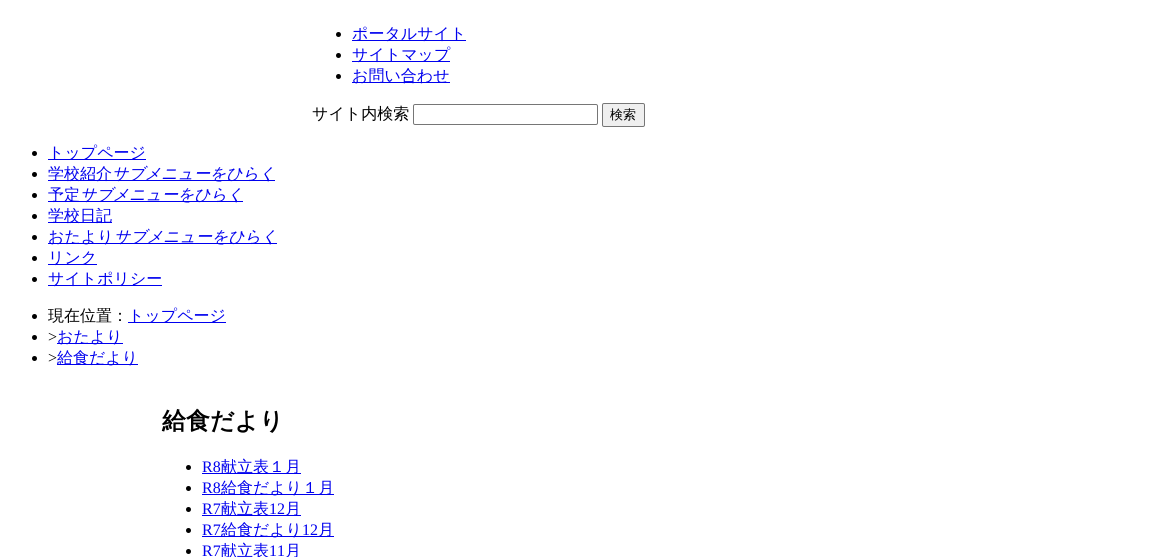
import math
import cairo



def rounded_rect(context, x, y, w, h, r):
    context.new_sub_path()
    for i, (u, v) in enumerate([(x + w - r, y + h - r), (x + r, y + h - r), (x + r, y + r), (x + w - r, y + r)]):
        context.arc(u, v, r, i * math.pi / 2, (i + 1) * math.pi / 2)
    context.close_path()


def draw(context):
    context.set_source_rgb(1, 1, 1)
    context.paint()
    context.set_source_rgb(0, 0, 0)
    context.arc(338.5, 34.5, 2.5, 0, 2 * math.pi)
    context.fill()
    context.set_source_rgb(0, 0, 238 / 255)
    context.rectangle(352, 40, 114, 1)
    context.fill()
    context.set_source_rgb(0, 0, 0)
    context.arc(338.5, 55.5, 2.5, 0, 2 * math.pi)
    context.fill()
    context.set_source_rgb(0, 0, 238 / 255)
    context.rectangle(352, 61, 98, 1)
    context.fill()
    context.set_source_rgb(0, 0, 0)
    context.arc(338.5, 76.5, 2.5, 0, 2 * math.pi)
    context.fill()
    context.set_source_rgb(0, 0, 238 / 255)
    context.rectangle(352, 82, 98, 1)
    context.fill()
    rounded_rect(context, 413.5, 104.5, 184, 20, 1.5)
    context.set_source_rgb(118 / 255, 118 / 255, 118 / 255)
    context.set_line_width(1)
    context.stroke()
    context.set_source_rgb(239 / 255, 239 / 255, 239 / 255)
    rounded_rect(context, 602.5, 103.5, 42, 23, 1.5)
    context.fill_preserve()
    context.set_source_rgb(118 / 255, 118 / 255, 118 / 255)
    context.stroke()
    context.set_source_rgb(0, 0, 0)
    context.arc(34.5, 153.5, 2.5, 0, 2 * math.pi)
    context.fill()
    context.set_source_rgb(0, 0, 238 / 255)
    context.rectangle(48, 159, 98, 1)
    context.fill()
    context.set_source_rgb(0, 0, 0)
    context.arc(34.5, 174.5, 2.5, 0, 2 * math.pi)
    context.fill()
    context.set_source_rgb(0, 0, 238 / 255)
    context.rectangle(48, 180, 227, 1)
    context.fill()
    context.set_source_rgb(0, 0, 0)
    context.arc(34.5, 195.5, 2.5, 0, 2 * math.pi)
    context.fill()
    context.set_source_rgb(0, 0, 238 / 255)
    context.rectangle(48, 201, 195, 1)
    context.fill()
    context.set_source_rgb(0, 0, 0)
    context.arc(34.5, 216.5, 2.5, 0, 2 * math.pi)
    context.fill()
    context.set_source_rgb(0, 0, 238 / 255)
    context.rectangle(48, 222, 64, 1)
    context.fill()
    context.set_source_rgb(0, 0, 0)
    context.arc(34.5, 237.5, 2.5, 0, 2 * math.pi)
    context.fill()
    context.set_source_rgb(0, 0, 238 / 255)
    context.rectangle(48, 243, 229, 1)
    context.fill()
    context.set_source_rgb(0, 0, 0)
    context.arc(34.5, 258.5, 2.5, 0, 2 * math.pi)
    context.fill()
    context.set_source_rgb(0, 0, 238 / 255)
    context.rectangle(48, 264, 49, 1)
    context.fill()
    context.set_source_rgb(0, 0, 0)
    context.arc(34.5, 279.5, 2.5, 0, 2 * math.pi)
    context.fill()
    context.set_source_rgb(0, 0, 238 / 255)
    context.rectangle(48, 285, 114, 1)
    context.fill()
    context.set_source_rgb(0, 0, 0)
    context.arc(34.5, 316.5, 2.5, 0, 2 * math.pi)
    context.fill()
    context.set_source_rgb(0, 0, 238 / 255)
    context.rectangle(128, 322, 98, 1)
    context.fill()
    context.set_source_rgb(0, 0, 0)
    context.arc(34.5, 337.5, 2.5, 0, 2 * math.pi)
    context.fill()
    context.set_source_rgb(0, 0, 238 / 255)
    context.rectangle(57, 343, 66, 1)
    context.fill()
    context.set_source_rgb(0, 0, 0)
    context.arc(34.5, 358.5, 2.5, 0, 2 * math.pi)
    context.fill()
    context.set_source_rgb(0, 0, 238 / 255)
    context.rectangle(57, 364, 81, 1)
    context.fill()
    context.set_source_rgb(0, 0, 0)
    context.arc(188.5, 467.5, 2.5, 0, 2 * math.pi)
    context.fill()
    context.set_source_rgb(0, 0, 238 / 255)
    context.rectangle(202, 473, 99, 1)
    context.fill()
    context.set_source_rgb(0, 0, 0)
    context.arc(188.5, 488.5, 2.5, 0, 2 * math.pi)
    context.fill()
    context.set_source_rgb(0, 0, 238 / 255)
    context.rectangle(202, 494, 132, 1)
    context.fill()
    context.set_source_rgb(0, 0, 0)
    context.arc(188.5, 509.5, 2.5, 0, 2 * math.pi)
    context.fill()
    context.set_source_rgb(0, 0, 238 / 255)
    context.rectangle(202, 515, 99, 1)
    context.fill()
    context.set_source_rgb(0, 0, 0)
    context.arc(188.5, 530.5, 2.5, 0, 2 * math.pi)
    context.fill()
    context.set_source_rgb(0, 0, 238 / 255)
    context.rectangle(202, 536, 132, 1)
    context.fill()
    context.set_source_rgb(0, 0, 0)
    context.arc(188.5, 551.5, 2.5, 0, 2 * math.pi)
    context.fill()
    context.select_font_face("WenQuanYi Zen Hei Medium")
    context.set_font_size(16)
    context.set_source_rgb(0, 0, 238 / 255)
    context.move_to(352, 39)
    context.show_text("ポータルサイト")
    context.move_to(352, 60)
    context.show_text("サイトマップ")
    context.move_to(352, 81)
    context.show_text("お問い合わせ")
    context.set_source_rgb(0, 0, 0)
    context.move_to(312, 119)
    context.show_text("サイト内検索")
    context.set_font_size(13)
    context.move_to(610, 119)
    context.show_text("検索")
    context.set_font_size(16)
    context.set_source_rgb(0, 0, 238 / 255)
    context.move_to(48, 158)
    context.show_text("トップページ")
    context.move_to(48, 179)
    context.show_text("学校紹介")
    context.select_font_face("WenQuanYi Zen Hei Medium", cairo.FontSlant.ITALIC)
    context.move_to(112, 179)
    context.show_text("サブメニューをひらく")
    context.select_font_face("WenQuanYi Zen Hei Medium")
    context.move_to(48, 200)
    context.show_text("予定")
    context.select_font_face("WenQuanYi Zen Hei Medium", cairo.FontSlant.ITALIC)
    context.move_to(80, 200)
    context.show_text("サブメニューをひらく")
    context.select_font_face("WenQuanYi Zen Hei Medium")
    context.move_to(48, 221)
    context.show_text("学校日記")
    context.move_to(48, 242)
    context.show_text("おたより")
    context.select_font_face("WenQuanYi Zen Hei Medium", cairo.FontSlant.ITALIC)
    context.move_to(114, 242)
    context.show_text("サブメニューをひらく")
    context.select_font_face("WenQuanYi Zen Hei Medium")
    context.move_to(48, 263)
    context.show_text("リンク")
    context.move_to(48, 284)
    context.show_text("サイトポリシー")
    context.set_source_rgb(0, 0, 0)
    context.move_to(48, 321)
    context.show_text("現在位置：")
    context.set_source_rgb(0, 0, 238 / 255)
    context.move_to(128, 321)
    context.show_text("トップページ")
    context.select_font_face("Liberation Serif")
    context.set_source_rgb(0, 0, 0)
    context.move_to(48, 342)
    context.show_text(">")
    context.select_font_face("WenQuanYi Zen Hei Medium")
    context.set_source_rgb(0, 0, 238 / 255)
    context.move_to(57, 342)
    context.show_text("おたより")
    context.select_font_face("Liberation Serif")
    context.set_source_rgb(0, 0, 0)
    context.move_to(48, 363)
    context.show_text(">")
    context.select_font_face("WenQuanYi Zen Hei Medium")
    context.set_source_rgb(0, 0, 238 / 255)
    context.move_to(57, 363)
    context.show_text("給食だより")
    context.select_font_face("WenQuanYi Zen Hei", cairo.FontSlant.NORMAL, cairo.FontWeight.BOLD)
    context.set_font_size(24)
    context.set_source_rgb(0, 0, 0)
    context.move_to(162, 429)
    context.show_text("給食だより")
    context.select_font_face("Liberation Serif")
    context.set_font_size(16)
    context.set_source_rgb(0, 0, 238 / 255)
    context.move_to(202, 472)
    context.show_text("R8")
    context.select_font_face("WenQuanYi Zen Hei Medium")
    context.move_to(221, 472)
    context.show_text("献立表１月")
    context.select_font_face("Liberation Serif")
    context.move_to(202, 493)
    context.show_text("R8")
    context.select_font_face("WenQuanYi Zen Hei Medium")
    context.move_to(221, 493)
    context.show_text("給食だより１月")
    context.select_font_face("Liberation Serif")
    context.move_to(202, 514)
    context.show_text("R7")
    context.select_font_face("WenQuanYi Zen Hei Medium")
    context.move_to(221, 514)
    context.show_text("献立表")
    context.select_font_face("Liberation Serif")
    context.move_to(269, 514)
    context.show_text("12")
    context.select_font_face("WenQuanYi Zen Hei Medium")
    context.move_to(285, 514)
    context.show_text("月")
    context.select_font_face("Liberation Serif")
    context.move_to(202, 535)
    context.show_text("R7")
    context.select_font_face("WenQuanYi Zen Hei Medium")
    context.move_to(221, 535)
    context.show_text("給食だより")
    context.select_font_face("Liberation Serif")
    context.move_to(302, 535)
    context.show_text("12")
    context.select_font_face("WenQuanYi Zen Hei Medium")
    context.move_to(318, 535)
    context.show_text("月")
    context.select_font_face("Liberation Serif")
    context.move_to(202, 556)
    context.show_text("R7")
    context.select_font_face("WenQuanYi Zen Hei Medium")
    context.move_to(221, 556)
    context.show_text("献立表")
    context.select_font_face("Liberation Serif")
    context.move_to(269, 556)
    context.show_text("11")
    context.select_font_face("WenQuanYi Zen Hei Medium")
    context.move_to(285, 556)
    context.show_text("月")


surface = cairo.ImageSurface(cairo.Format.RGB24, 1150, 557)
context = cairo.Context(surface)
options = cairo.FontOptions()
options.set_hint_metrics(cairo.HintMetrics.OFF)
options.set_hint_style(cairo.HintStyle.NONE)
context.set_font_options(options)
context.set_miter_limit(4)
draw(context)
surface.write_to_png("out.png")
